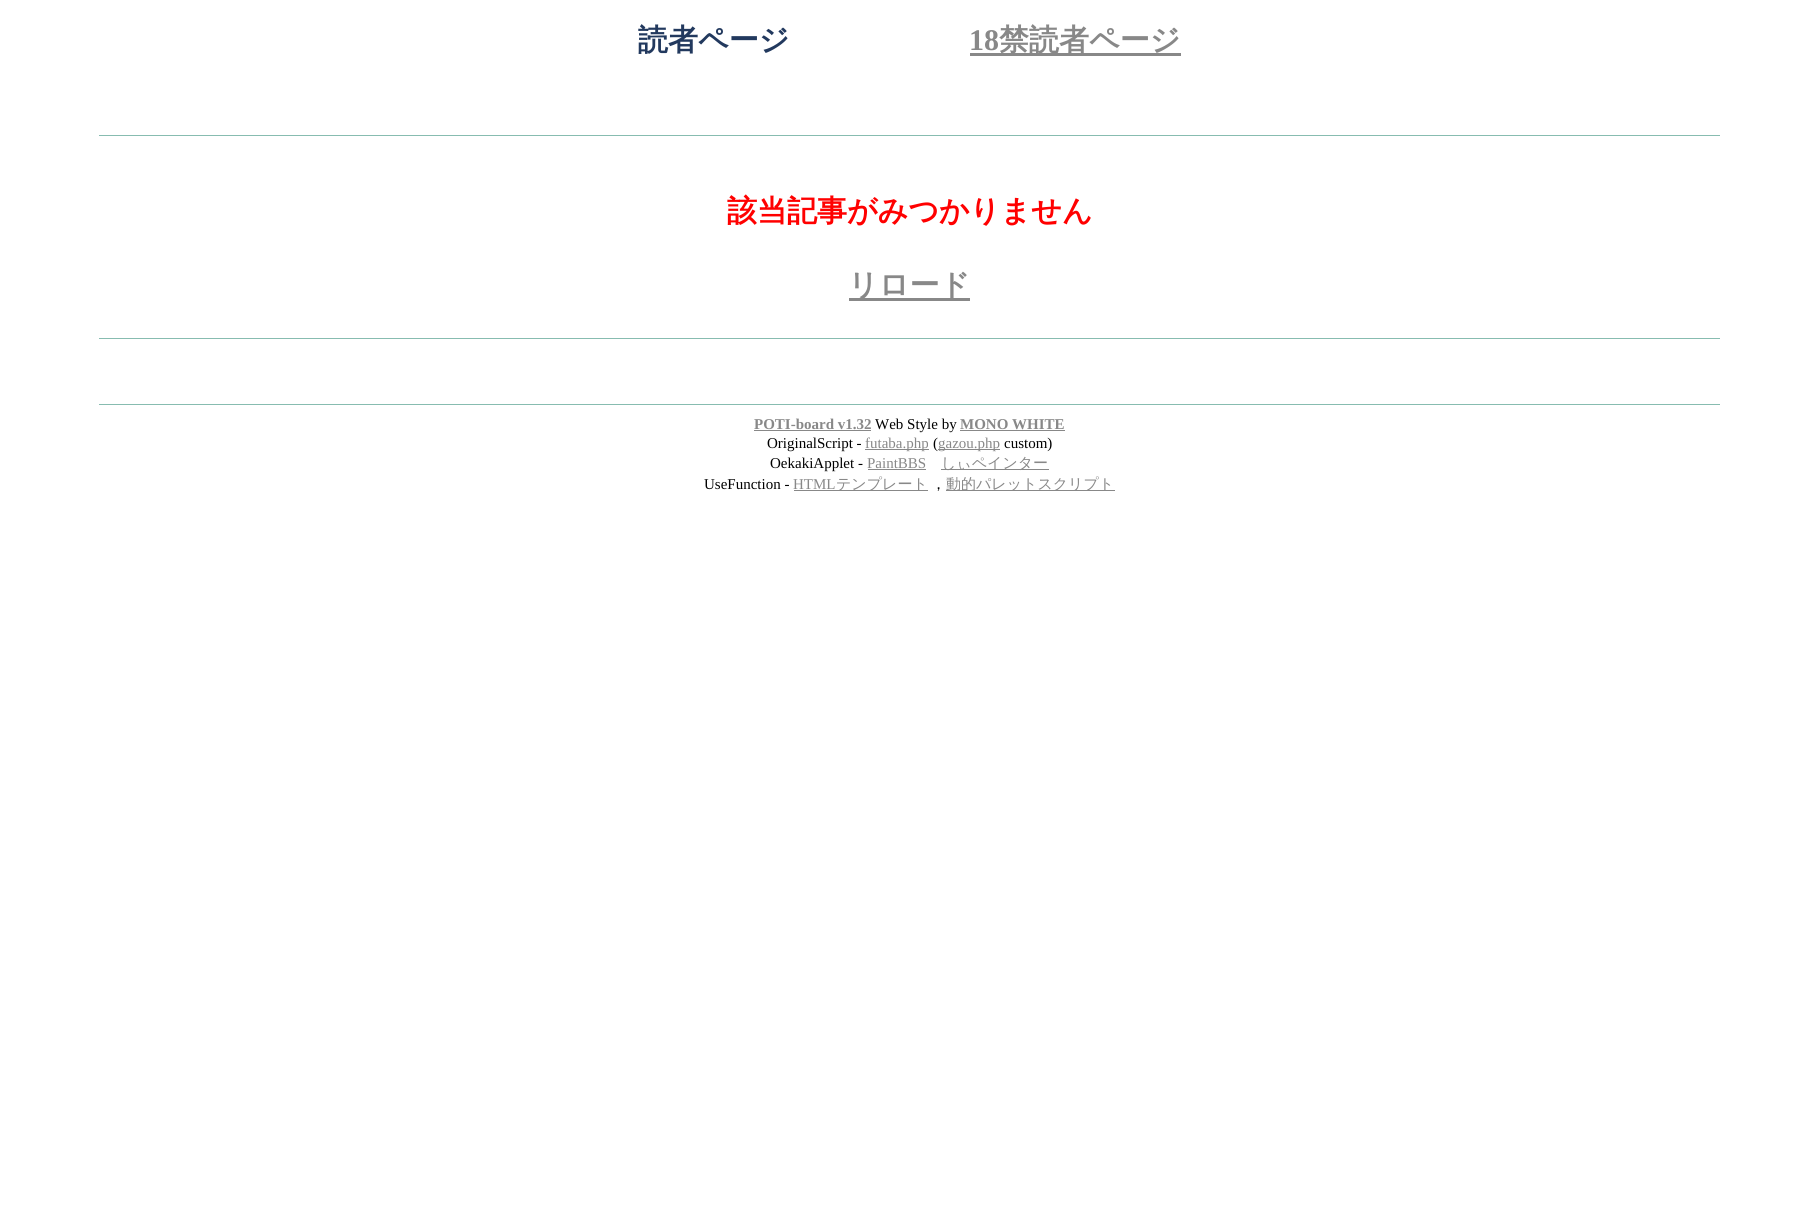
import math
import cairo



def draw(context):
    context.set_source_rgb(1, 1, 1)
    context.paint()
    context.set_source_rgb(136 / 255, 136 / 255, 136 / 255)
    context.rectangle(970, 53, 211, 3)
    context.fill()
    context.set_source_rgb(135 / 255, 188 / 255, 176 / 255)
    context.rectangle(99, 135, 1621, 1)
    context.fill()
    context.set_source_rgb(136 / 255, 136 / 255, 136 / 255)
    context.rectangle(849, 298, 121, 3)
    context.fill()
    context.set_source_rgb(135 / 255, 188 / 255, 176 / 255)
    context.rectangle(99, 338, 1621, 1)
    context.fill()
    context.rectangle(99, 404, 1621, 1)
    context.fill()
    context.set_source_rgb(136 / 255, 136 / 255, 136 / 255)
    context.rectangle(754, 430, 117, 1)
    context.fill()
    context.rectangle(960, 430, 105, 1)
    context.fill()
    context.rectangle(865, 449, 64, 1)
    context.fill()
    context.rectangle(938, 449, 62, 1)
    context.fill()
    context.rectangle(868, 469, 58, 1)
    context.fill()
    context.rectangle(941, 469, 108, 1)
    context.fill()
    context.rectangle(794, 490, 134, 1)
    context.fill()
    context.rectangle(946, 490, 169, 1)
    context.fill()
    context.select_font_face("WenQuanYi Zen Hei", cairo.FontSlant.NORMAL, cairo.FontWeight.BOLD)
    context.set_font_size(30)
    context.set_source_rgb(34 / 255, 57 / 255, 94 / 255)
    context.move_to(638, 50)
    context.show_text("読者ページ")
    context.select_font_face("Liberation Serif", cairo.FontSlant.NORMAL, cairo.FontWeight.BOLD)
    context.set_source_rgb(136 / 255, 136 / 255, 136 / 255)
    context.move_to(969, 50)
    context.show_text("18")
    context.select_font_face("WenQuanYi Zen Hei", cairo.FontSlant.NORMAL, cairo.FontWeight.BOLD)
    context.move_to(999, 50)
    context.show_text("禁読者ページ")
    context.set_source_rgb(1, 0, 0)
    context.move_to(727, 221)
    context.show_text("該当記事がみつかりません")
    context.set_source_rgb(136 / 255, 136 / 255, 136 / 255)
    context.move_to(848, 295)
    context.show_text("リロード")
    context.select_font_face("Liberation Serif", cairo.FontSlant.NORMAL, cairo.FontWeight.BOLD)
    context.set_font_size(15)
    context.move_to(754, 429)
    context.show_text("POTI-board v1.32")
    context.select_font_face("Liberation Serif")
    context.set_source_rgb(0, 0, 0)
    context.move_to(875, 429)
    context.show_text("Web Style by")
    context.select_font_face("Liberation Serif", cairo.FontSlant.NORMAL, cairo.FontWeight.BOLD)
    context.set_source_rgb(136 / 255, 136 / 255, 136 / 255)
    context.move_to(960, 429)
    context.show_text("MONO WHITE")
    context.select_font_face("Liberation Serif")
    context.set_source_rgb(0, 0, 0)
    context.move_to(767, 448)
    context.show_text("OriginalScript -")
    context.set_source_rgb(136 / 255, 136 / 255, 136 / 255)
    context.move_to(865, 448)
    context.show_text("futaba.php")
    context.set_source_rgb(0, 0, 0)
    context.move_to(933, 448)
    context.show_text("(")
    context.set_source_rgb(136 / 255, 136 / 255, 136 / 255)
    context.move_to(938, 448)
    context.show_text("gazou.php")
    context.set_source_rgb(0, 0, 0)
    context.move_to(1004, 448)
    context.show_text("custom)")
    context.move_to(770, 468)
    context.show_text("OekakiApplet -")
    context.set_source_rgb(136 / 255, 136 / 255, 136 / 255)
    context.move_to(867, 468)
    context.show_text("PaintBBS")
    context.select_font_face("WenQuanYi Zen Hei Medium")
    context.move_to(941, 468)
    context.show_text("しぃペインター")
    context.select_font_face("Liberation Serif")
    context.set_source_rgb(0, 0, 0)
    context.move_to(704, 489)
    context.show_text("UseFunction -")
    context.set_source_rgb(136 / 255, 136 / 255, 136 / 255)
    context.move_to(793, 489)
    context.show_text("HTML")
    context.select_font_face("WenQuanYi Zen Hei Medium")
    context.move_to(836, 489)
    context.show_text("テンプレート")
    context.set_source_rgb(0, 0, 0)
    context.move_to(931, 489)
    context.show_text("，")
    context.set_source_rgb(136 / 255, 136 / 255, 136 / 255)
    context.move_to(946, 489)
    context.show_text("動的パレットスクリプト")


surface = cairo.ImageSurface(cairo.Format.RGB24, 1818, 1218)
context = cairo.Context(surface)
options = cairo.FontOptions()
options.set_hint_metrics(cairo.HintMetrics.OFF)
options.set_hint_style(cairo.HintStyle.NONE)
context.set_font_options(options)
context.set_miter_limit(4)
draw(context)
surface.write_to_png("out.png")
